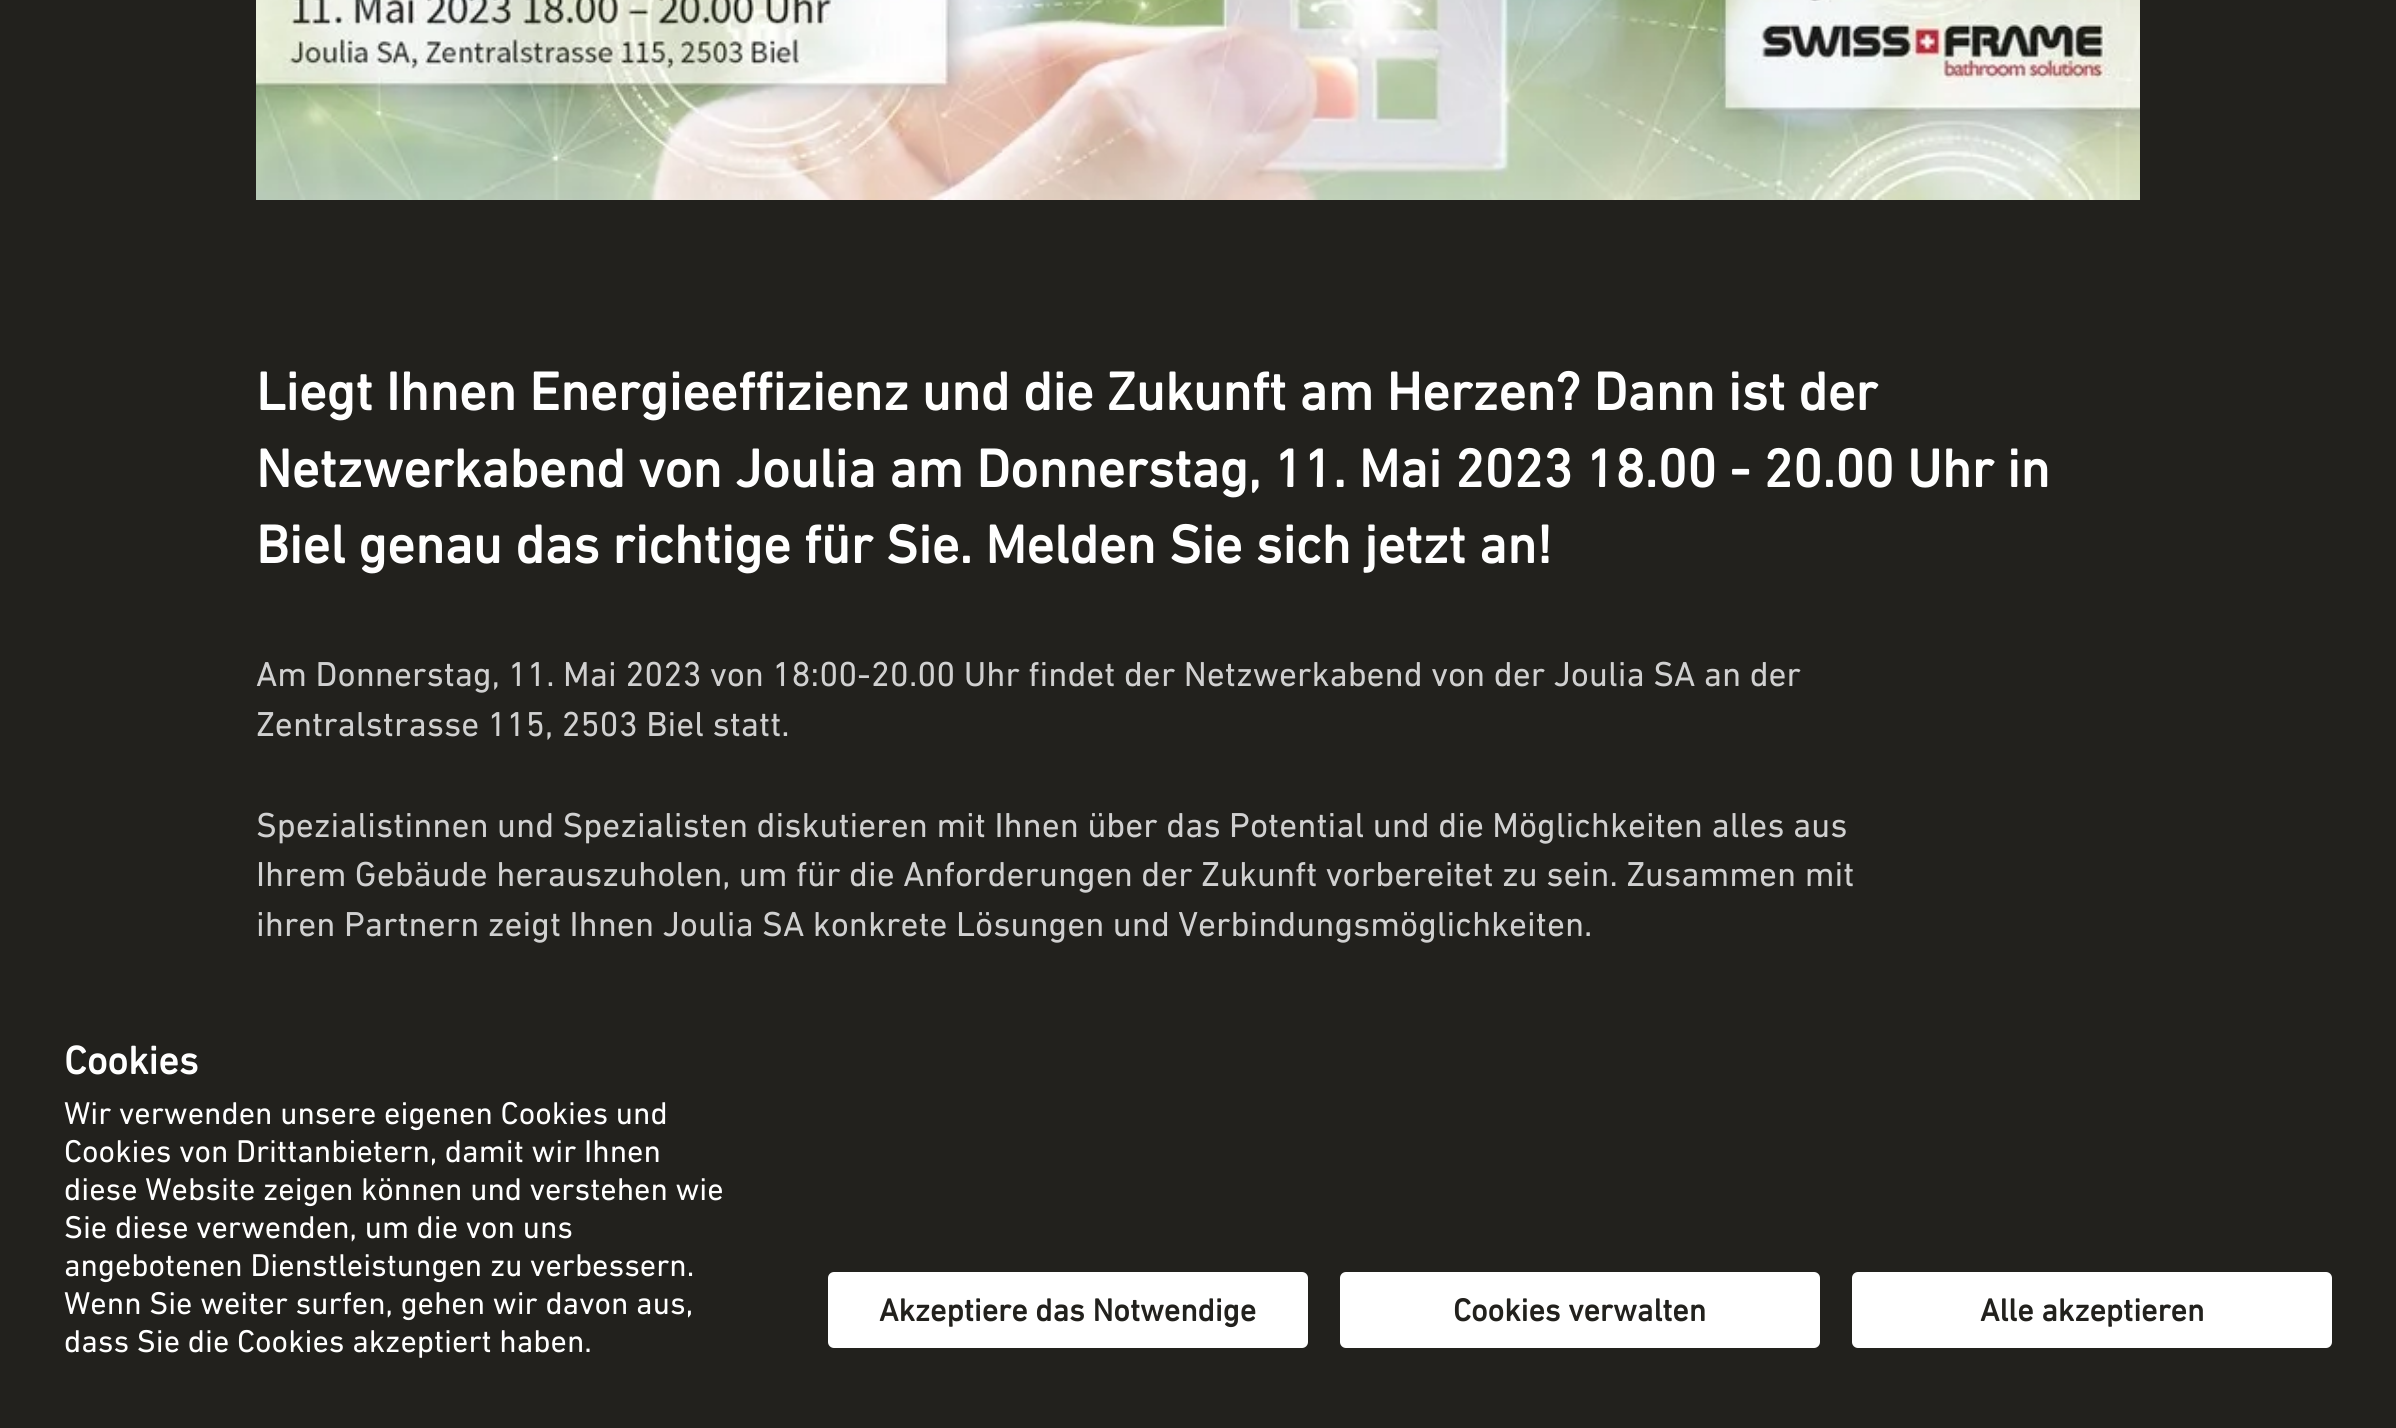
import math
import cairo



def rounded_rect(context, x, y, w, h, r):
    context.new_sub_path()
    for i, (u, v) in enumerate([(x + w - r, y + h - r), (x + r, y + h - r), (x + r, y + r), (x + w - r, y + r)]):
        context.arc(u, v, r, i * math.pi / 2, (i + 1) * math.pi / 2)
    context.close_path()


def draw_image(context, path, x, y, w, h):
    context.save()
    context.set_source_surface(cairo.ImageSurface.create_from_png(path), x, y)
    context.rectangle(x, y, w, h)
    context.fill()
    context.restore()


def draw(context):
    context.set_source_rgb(34 / 255, 33 / 255, 29 / 255)
    context.paint()
    draw_image(context, "images/1.png", 256, 0, 1884, 200)
    context.set_source_rgb(1, 1, 1)
    rounded_rect(context, 828, 1272, 480, 76, 6)
    context.fill()
    rounded_rect(context, 1340, 1272, 480, 76, 6)
    context.fill()
    rounded_rect(context, 1852, 1272, 480, 76, 6)
    context.fill()
    context.select_font_face("DIN Next", cairo.FontSlant.NORMAL, cairo.FontWeight.BOLD)
    context.set_font_size(54.4)
    context.move_to(256, 410)
    context.show_text("Liegt Ihnen Energieeffizienz und die Zukunft am Herzen? Dann ist der")
    context.move_to(256, 487)
    context.show_text("Netzwerkabend von Joulia am Donnerstag, 11. Mai 2023 18.00 - 20.00 Uhr in")
    context.move_to(256, 563)
    context.show_text("Biel genau das richtige für Sie. Melden Sie sich jetzt an!")
    context.select_font_face("DIN Next")
    context.set_font_size(35.2)
    context.set_source_rgb(208 / 255, 208 / 255, 208 / 255)
    context.move_to(256, 686)
    context.show_text("Am Donnerstag, 11. Mai 2023 von 18:00-20.00 Uhr findet der Netzwerkabend von der Joulia SA an der")
    context.move_to(256, 736)
    context.show_text("Zentralstrasse 115, 2503 Biel statt.")
    context.move_to(256, 837)
    context.show_text("Spezialistinnen und Spezialisten diskutieren mit Ihnen über das Potential und die Möglichkeiten alles aus")
    context.move_to(256, 886)
    context.show_text("Ihrem Gebäude herauszuholen, um für die Anforderungen der Zukunft vorbereitet zu sein. Zusammen mit")
    context.move_to(256, 936)
    context.show_text("ihren Partnern zeigt Ihnen Joulia SA konkrete Lösungen und Verbindungsmöglichkeiten.")
    context.select_font_face("DIN Next", cairo.FontSlant.NORMAL, cairo.FontWeight.BOLD)
    context.set_font_size(40)
    context.set_source_rgb(1, 1, 1)
    context.move_to(64, 1074)
    context.show_text("Cookies")
    context.select_font_face("DIN Next")
    context.set_font_size(32)
    context.move_to(64, 1124)
    context.show_text("Wir verwenden unsere eigenen Cookies und")
    context.move_to(64, 1162)
    context.show_text("Cookies von Drittanbietern, damit wir Ihnen")
    context.move_to(64, 1200)
    context.show_text("diese Website zeigen können und verstehen wie")
    context.move_to(64, 1238)
    context.show_text("Sie diese verwenden, um die von uns")
    context.move_to(64, 1276)
    context.show_text("angebotenen Dienstleistungen zu verbessern.")
    context.move_to(64, 1314)
    context.show_text("Wenn Sie weiter surfen, gehen wir davon aus,")
    context.move_to(64, 1352)
    context.show_text("dass Sie die Cookies akzeptiert haben.")
    context.select_font_face("DIN Next", cairo.FontSlant.NORMAL, cairo.FontWeight.BOLD)
    context.set_source_rgb(34 / 255, 33 / 255, 29 / 255)
    context.move_to(879, 1321)
    context.show_text("Akzeptiere das Notwendige")
    context.move_to(1453, 1321)
    context.show_text("Cookies verwalten")
    context.move_to(1980, 1321)
    context.show_text("Alle akzeptieren")


surface = cairo.ImageSurface(cairo.Format.RGB24, 2396, 1428)
context = cairo.Context(surface)
options = cairo.FontOptions()
options.set_hint_metrics(cairo.HintMetrics.OFF)
options.set_hint_style(cairo.HintStyle.NONE)
context.set_font_options(options)
context.set_miter_limit(4)
draw(context)
surface.write_to_png("out.png")
